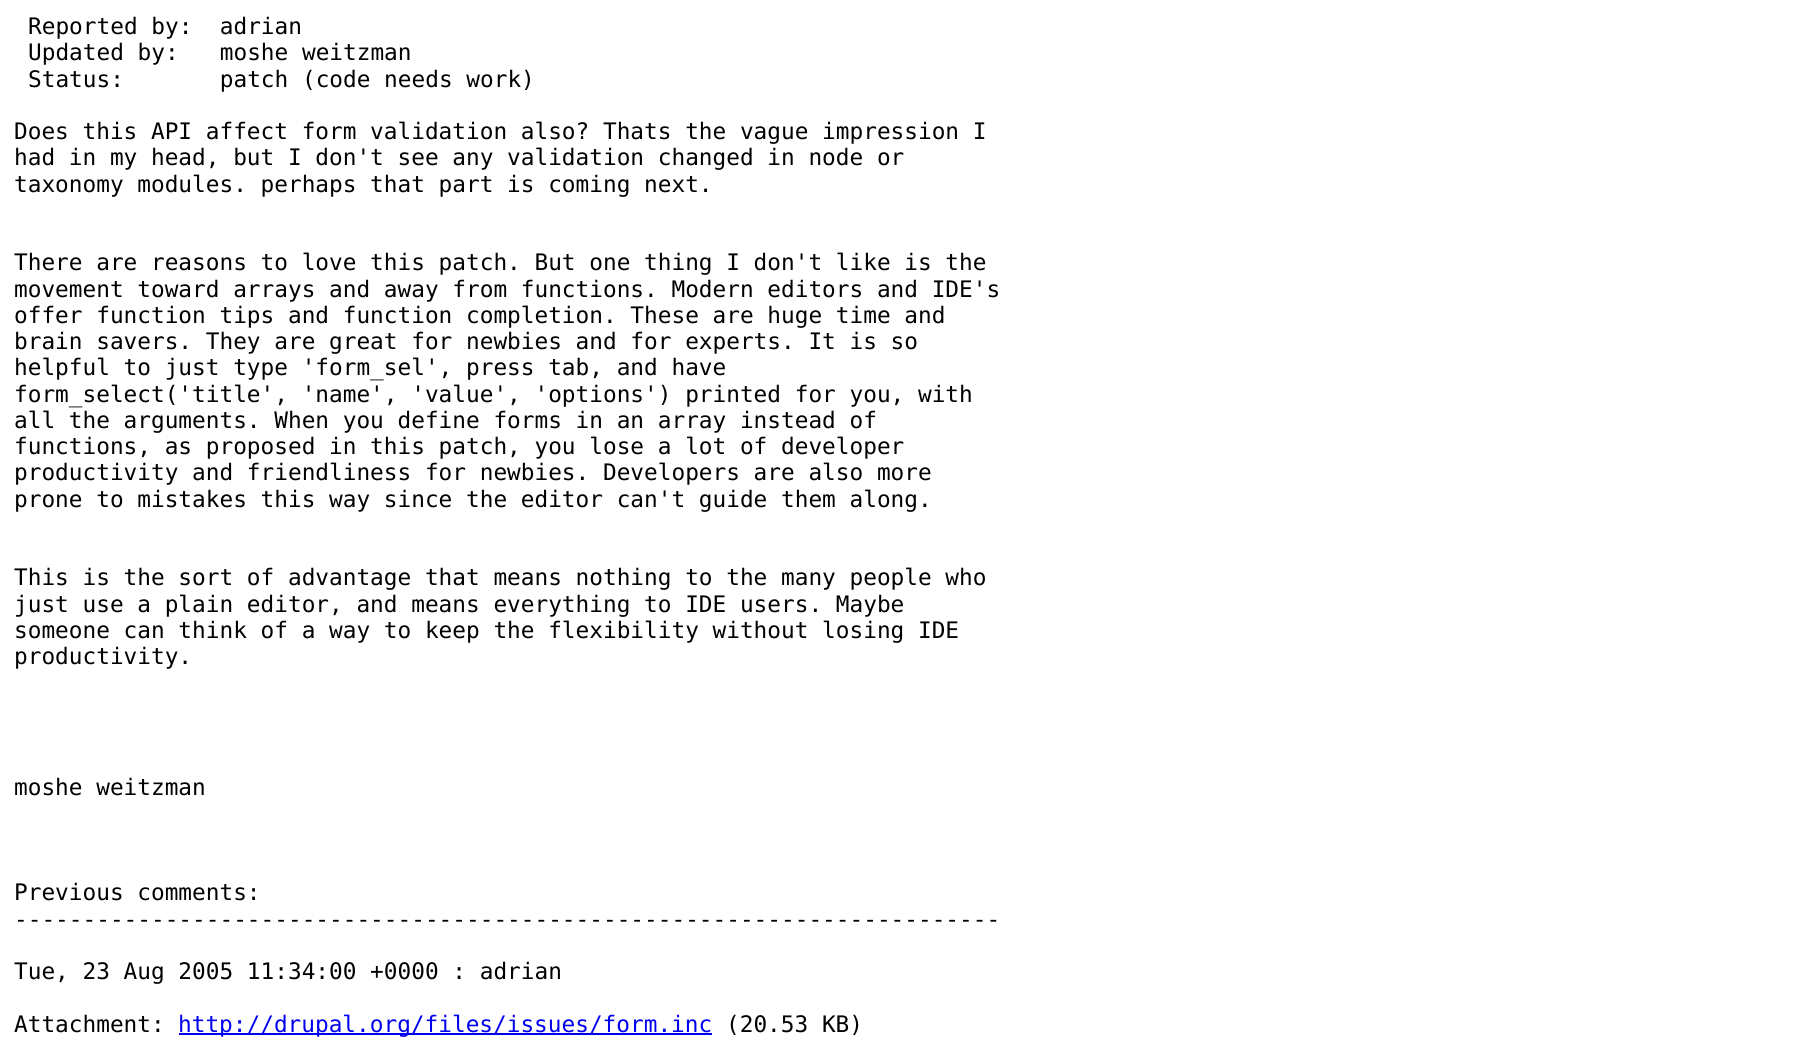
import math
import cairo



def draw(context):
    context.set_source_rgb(1, 1, 1)
    context.paint()
    context.set_source_rgb(0, 0, 238 / 255)
    context.rectangle(179, 1033, 533, 2)
    context.fill()
    context.select_font_face("DejaVu Sans Mono")
    context.set_font_size(22.75)
    context.set_source_rgb(0, 0, 0)
    context.move_to(28, 34)
    context.show_text("Reported by:  adrian")
    context.move_to(28, 60)
    context.show_text("Updated by:   moshe weitzman")
    context.move_to(28, 87)
    context.show_text("Status:       patch (code needs work)")
    context.move_to(14, 139)
    context.show_text("Does this API affect form validation also? Thats the vague impression I")
    context.move_to(14, 165)
    context.show_text("had in my head, but I don't see any validation changed in node or")
    context.move_to(14, 192)
    context.show_text("taxonomy modules. perhaps that part is coming next.")
    context.move_to(14, 270)
    context.show_text("There are reasons to love this patch. But one thing I don't like is the")
    context.move_to(14, 297)
    context.show_text("movement toward arrays and away from functions. Modern editors and IDE's")
    context.move_to(14, 323)
    context.show_text("offer function tips and function completion. These are huge time and")
    context.move_to(14, 349)
    context.show_text("brain savers. They are great for newbies and for experts. It is so")
    context.move_to(14, 375)
    context.show_text("helpful to just type 'form_sel', press tab, and have")
    context.move_to(14, 402)
    context.show_text("form_select('title', 'name', 'value', 'options') printed for you, with")
    context.move_to(14, 428)
    context.show_text("all the arguments. When you define forms in an array instead of")
    context.move_to(14, 454)
    context.show_text("functions, as proposed in this patch, you lose a lot of developer")
    context.move_to(14, 480)
    context.show_text("productivity and friendliness for newbies. Developers are also more")
    context.move_to(14, 507)
    context.show_text("prone to mistakes this way since the editor can't guide them along.")
    context.move_to(14, 585)
    context.show_text("This is the sort of advantage that means nothing to the many people who")
    context.move_to(14, 612)
    context.show_text("just use a plain editor, and means everything to IDE users. Maybe")
    context.move_to(14, 638)
    context.show_text("someone can think of a way to keep the flexibility without losing IDE")
    context.move_to(14, 664)
    context.show_text("productivity.")
    context.move_to(14, 795)
    context.show_text("moshe weitzman")
    context.move_to(14, 900)
    context.show_text("Previous comments:")
    context.move_to(14, 927)
    context.show_text("------------------------------------------------------------------------")
    context.move_to(14, 979)
    context.show_text("Tue, 23 Aug 2005 11:34:00 +0000 : adrian")
    context.move_to(14, 1032)
    context.show_text("Attachment:")
    context.set_source_rgb(0, 0, 238 / 255)
    context.move_to(178, 1032)
    context.show_text("http://drupal.org/files/issues/form.inc")
    context.set_source_rgb(0, 0, 0)
    context.move_to(726, 1032)
    context.show_text("(20.53 KB)")


surface = cairo.ImageSurface(cairo.Format.RGB24, 1816, 1064)
context = cairo.Context(surface)
options = cairo.FontOptions()
options.set_hint_metrics(cairo.HintMetrics.OFF)
options.set_hint_style(cairo.HintStyle.NONE)
context.set_font_options(options)
context.set_miter_limit(4)
draw(context)
surface.write_to_png("out.png")
